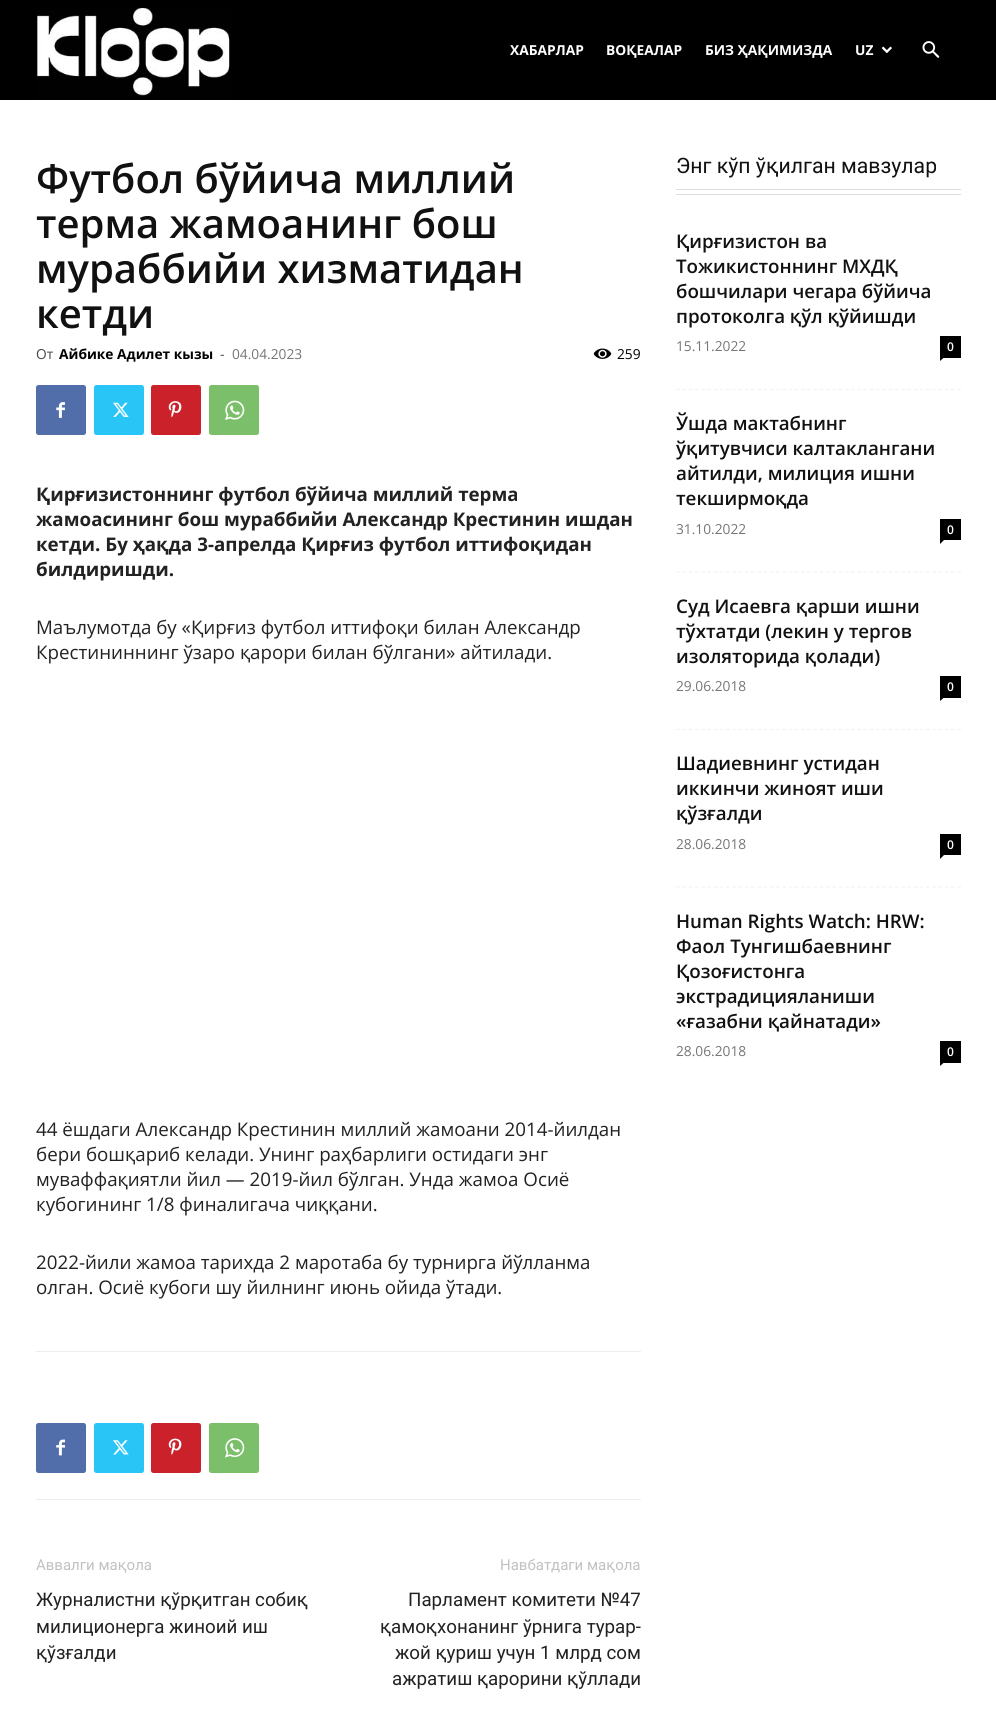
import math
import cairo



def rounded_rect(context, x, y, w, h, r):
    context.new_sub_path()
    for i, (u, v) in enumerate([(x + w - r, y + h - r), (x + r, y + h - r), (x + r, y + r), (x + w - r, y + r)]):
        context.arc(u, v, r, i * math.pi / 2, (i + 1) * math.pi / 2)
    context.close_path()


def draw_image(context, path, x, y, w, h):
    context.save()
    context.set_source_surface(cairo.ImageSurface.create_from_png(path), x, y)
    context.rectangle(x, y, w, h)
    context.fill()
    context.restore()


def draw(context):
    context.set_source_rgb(1, 1, 1)
    context.paint()
    context.set_source_rgb(0, 0, 0)
    context.rectangle(0, 0, 996, 100)
    context.fill()
    draw_image(context, "images/1.png", 36, 7, 195, 90)
    draw_image(context, "images/2.png", 881, 46, 11, 8)
    draw_image(context, "images/3.png", 922, 41, 18, 17)
    draw_image(context, "images/4.png", 593, 348, 19, 11)
    context.set_source_rgb(81 / 255, 110 / 255, 171 / 255)
    rounded_rect(context, 36, 385, 50, 50, 2.5)
    context.fill()
    draw_image(context, "images/5.png", 56, 402, 9, 16)
    context.set_source_rgb(41 / 255, 197 / 255, 246 / 255)
    rounded_rect(context, 94, 385, 50, 50, 2.5)
    context.fill()
    draw_image(context, "images/6.png", 113, 402, 16, 15)
    context.set_source_rgb(202 / 255, 33 / 255, 42 / 255)
    rounded_rect(context, 151, 385, 50, 50, 2.5)
    context.fill()
    draw_image(context, "images/7.png", 168, 401, 14, 17)
    context.set_source_rgb(123 / 255, 191 / 255, 106 / 255)
    rounded_rect(context, 209, 385, 50, 50, 2.5)
    context.fill()
    draw_image(context, "images/8.png", 225, 400, 20, 20)
    context.set_source_rgb(237 / 255, 237 / 255, 237 / 255)
    context.rectangle(36, 1351, 605, 1)
    context.fill()
    context.rectangle(36, 1499, 605, 1)
    context.fill()
    context.set_source_rgb(81 / 255, 110 / 255, 171 / 255)
    rounded_rect(context, 36, 1423, 50, 50, 2.5)
    context.fill()
    draw_image(context, "images/9.png", 56, 1439, 9, 17)
    context.set_source_rgb(41 / 255, 197 / 255, 246 / 255)
    rounded_rect(context, 94, 1423, 50, 50, 2.5)
    context.fill()
    draw_image(context, "images/10.png", 113, 1440, 16, 15)
    context.set_source_rgb(202 / 255, 33 / 255, 42 / 255)
    rounded_rect(context, 151, 1423, 50, 50, 2.5)
    context.fill()
    draw_image(context, "images/11.png", 168, 1438, 14, 17)
    context.set_source_rgb(123 / 255, 191 / 255, 106 / 255)
    rounded_rect(context, 209, 1423, 50, 50, 2.5)
    context.fill()
    draw_image(context, "images/12.png", 225, 1438, 20, 20)
    context.set_source_rgb(221 / 255, 221 / 255, 221 / 255)
    context.rectangle(676, 189, 285, 1)
    context.fill()
    context.rectangle(676, 194, 285, 1)
    context.fill()
    context.new_path()
    context.move_to(676, 389.5)
    context.line_to(961, 389.5)
    context.set_source_rgb(242 / 255, 242 / 255, 242 / 255)
    context.set_line_width(1.2)
    context.set_dash([3.75, 2.5])
    context.stroke()
    context.set_source_rgb(0, 0, 0)
    context.rectangle(940, 336, 21, 22)
    context.fill()
    context.new_path()
    context.move_to(940, 357.5)
    context.line_to(944, 357.5)
    context.line_to(940, 361)
    context.close_path()
    context.fill()
    context.new_path()
    context.move_to(676, 572)
    context.line_to(961, 572)
    context.set_source_rgb(242 / 255, 242 / 255, 242 / 255)
    context.stroke()
    context.set_source_rgb(0, 0, 0)
    context.rectangle(940, 519, 21, 21)
    context.fill()
    context.new_path()
    context.move_to(940, 540)
    context.line_to(944, 540)
    context.line_to(940, 544)
    context.close_path()
    context.fill()
    context.new_path()
    context.move_to(676, 729.5)
    context.line_to(961, 729.5)
    context.set_source_rgb(242 / 255, 242 / 255, 242 / 255)
    context.stroke()
    context.set_source_rgb(0, 0, 0)
    context.rectangle(940, 676, 21, 22)
    context.fill()
    context.new_path()
    context.move_to(940, 697.5)
    context.line_to(944, 697.5)
    context.line_to(940, 701)
    context.close_path()
    context.fill()
    context.new_path()
    context.move_to(676, 887)
    context.line_to(961, 887)
    context.set_source_rgb(242 / 255, 242 / 255, 242 / 255)
    context.stroke()
    context.set_source_rgb(0, 0, 0)
    context.rectangle(940, 834, 21, 21)
    context.fill()
    context.new_path()
    context.move_to(940, 855)
    context.line_to(944, 855)
    context.line_to(940, 859)
    context.close_path()
    context.fill()
    context.rectangle(940, 1041, 21, 22)
    context.fill()
    context.new_path()
    context.move_to(940, 1062.5)
    context.line_to(944, 1062.5)
    context.line_to(940, 1066)
    context.close_path()
    context.fill()
    context.select_font_face("Open Sans", cairo.FontSlant.NORMAL, cairo.FontWeight.BOLD)
    context.set_font_size(13.75)
    context.set_source_rgb(1, 1, 1)
    context.move_to(510, 55)
    context.show_text("ХАБАРЛАР")
    context.move_to(606, 55)
    context.show_text("ВОҚЕАЛАР")
    context.move_to(705, 55)
    context.show_text("БИЗ ҲАҚИМИЗДА")
    context.move_to(855, 55)
    context.show_text("UZ")
    context.select_font_face("Open Sans SemiBold")
    context.set_font_size(40)
    context.set_source_rgb(17 / 255, 17 / 255, 17 / 255)
    context.move_to(36, 193)
    context.show_text("Футбол бўйича миллий")
    context.move_to(36, 238)
    context.show_text("терма жамоанинг бош")
    context.move_to(36, 283)
    context.show_text("мураббийи хизматидан")
    context.move_to(36, 328)
    context.show_text("кетди")
    context.select_font_face("Open Sans")
    context.set_font_size(13.75)
    context.set_source_rgb(68 / 255, 68 / 255, 68 / 255)
    context.move_to(36, 359)
    context.show_text("От")
    context.select_font_face("Open Sans", cairo.FontSlant.NORMAL, cairo.FontWeight.BOLD)
    context.set_source_rgb(0, 0, 0)
    context.move_to(59, 359)
    context.show_text("Айбике Адилет кызы")
    context.select_font_face("Open Sans")
    context.set_source_rgb(68 / 255, 68 / 255, 68 / 255)
    context.move_to(220, 359)
    context.show_text("-")
    context.set_source_rgb(118 / 255, 118 / 255, 118 / 255)
    context.move_to(232, 359)
    context.show_text("04.04.2023")
    context.set_source_rgb(0, 0, 0)
    context.move_to(617, 359)
    context.show_text("259")
    context.select_font_face("Open Sans", cairo.FontSlant.NORMAL, cairo.FontWeight.BOLD)
    context.set_font_size(18.75)
    context.set_source_rgb(34 / 255, 34 / 255, 34 / 255)
    context.move_to(36, 501)
    context.show_text("Қирғизистоннинг футбол бўйича миллий терма")
    context.move_to(36, 526)
    context.show_text("жамоасининг бош мураббийи Александр Крестинин ишдан")
    context.move_to(36, 551)
    context.show_text("кетди. Бу ҳақда 3-апрелда Қирғиз футбол иттифоқидан")
    context.move_to(36, 576)
    context.show_text("билдиришди.")
    context.select_font_face("Open Sans")
    context.move_to(36, 634)
    context.show_text("Маълумотда бу «Қирғиз футбол иттифоқи билан Александр")
    context.move_to(36, 659)
    context.show_text("Крестининнинг ўзаро қарори билан бўлгани» айтилади.")
    context.move_to(36, 1136)
    context.show_text("44 ёшдаги Александр Крестинин миллий жамоани 2014-йилдан")
    context.move_to(36, 1161)
    context.show_text("бери бошқариб келади. Унинг раҳбарлиги остидаги энг")
    context.move_to(36, 1186)
    context.show_text("муваффақиятли йил — 2019-йил бўлган. Унда жамоа Осиё")
    context.move_to(36, 1211)
    context.show_text("кубогининг 1/8 финалигача чиққани.")
    context.move_to(36, 1269)
    context.show_text("2022-йили жамоа тарихда 2 маротаба бу турнирга йўлланма")
    context.move_to(36, 1294)
    context.show_text("олган. Осиё кубоги шу йилнинг июнь ойида ўтади.")
    context.select_font_face("Roboto")
    context.set_font_size(15)
    context.set_source_rgb(193 / 255, 193 / 255, 193 / 255)
    context.move_to(36, 1570)
    context.show_text("Аввалги мақола")
    context.set_font_size(18.75)
    context.set_source_rgb(34 / 255, 34 / 255, 34 / 255)
    context.move_to(36, 1606)
    context.show_text("Журналистни қўрқитган собиқ")
    context.move_to(36, 1633)
    context.show_text("милиционерга жиноий иш")
    context.move_to(36, 1659)
    context.show_text("қўзғалди")
    context.set_font_size(15)
    context.set_source_rgb(193 / 255, 193 / 255, 193 / 255)
    context.move_to(500, 1570)
    context.show_text("Навбатдаги мақола")
    context.set_font_size(18.75)
    context.set_source_rgb(34 / 255, 34 / 255, 34 / 255)
    context.move_to(408, 1606)
    context.show_text("Парламент комитети №47")
    context.move_to(380, 1633)
    context.show_text("қамоқхонанинг ўрнига турар-")
    context.move_to(395, 1659)
    context.show_text("жой қуриш учун 1 млрд сом")
    context.move_to(392, 1685)
    context.show_text("ажратиш қарорини қўллади")
    context.set_font_size(21.25)
    context.set_source_rgb(17 / 255, 17 / 255, 17 / 255)
    context.move_to(676, 173)
    context.show_text("Энг кўп ўқилган мавзулар")
    context.select_font_face("Open Sans SemiBold")
    context.set_font_size(18.75)
    context.move_to(676, 248)
    context.show_text("Қирғизистон ва")
    context.move_to(676, 273)
    context.show_text("Тожикистоннинг МХДҚ")
    context.move_to(676, 298)
    context.show_text("бошчилари чегара бўйича")
    context.move_to(676, 323)
    context.show_text("протоколга қўл қўйишди")
    context.select_font_face("Open Sans")
    context.set_font_size(13.75)
    context.set_source_rgb(118 / 255, 118 / 255, 118 / 255)
    context.move_to(676, 351)
    context.show_text("15.11.2022")
    context.select_font_face("Open Sans SemiBold")
    context.set_font_size(12)
    context.set_source_rgb(1, 1, 1)
    context.move_to(947, 351)
    context.show_text("0")
    context.set_font_size(18.75)
    context.set_source_rgb(17 / 255, 17 / 255, 17 / 255)
    context.move_to(676, 430)
    context.show_text("Ўшда мактабнинг")
    context.move_to(676, 455)
    context.show_text("ўқитувчиси калтаклангани")
    context.move_to(676, 480)
    context.show_text("айтилди, милиция ишни")
    context.move_to(676, 505)
    context.show_text("текширмоқда")
    context.select_font_face("Open Sans")
    context.set_font_size(13.75)
    context.set_source_rgb(118 / 255, 118 / 255, 118 / 255)
    context.move_to(676, 534)
    context.show_text("31.10.2022")
    context.select_font_face("Open Sans SemiBold")
    context.set_font_size(12)
    context.set_source_rgb(1, 1, 1)
    context.move_to(947, 534)
    context.show_text("0")
    context.set_font_size(18.75)
    context.set_source_rgb(17 / 255, 17 / 255, 17 / 255)
    context.move_to(676, 613)
    context.show_text("Суд Исаевга қарши ишни")
    context.move_to(676, 638)
    context.show_text("тўхтатди (лекин у тергов")
    context.move_to(676, 663)
    context.show_text("изоляторида қолади)")
    context.select_font_face("Open Sans")
    context.set_font_size(13.75)
    context.set_source_rgb(118 / 255, 118 / 255, 118 / 255)
    context.move_to(676, 691)
    context.show_text("29.06.2018")
    context.select_font_face("Open Sans SemiBold")
    context.set_font_size(12)
    context.set_source_rgb(1, 1, 1)
    context.move_to(947, 691)
    context.show_text("0")
    context.set_font_size(18.75)
    context.set_source_rgb(17 / 255, 17 / 255, 17 / 255)
    context.move_to(676, 770)
    context.show_text("Шадиевнинг устидан")
    context.move_to(676, 795)
    context.show_text("иккинчи жиноят иши")
    context.move_to(676, 820)
    context.show_text("қўзғалди")
    context.select_font_face("Open Sans")
    context.set_font_size(13.75)
    context.set_source_rgb(118 / 255, 118 / 255, 118 / 255)
    context.move_to(676, 849)
    context.show_text("28.06.2018")
    context.select_font_face("Open Sans SemiBold")
    context.set_font_size(12)
    context.set_source_rgb(1, 1, 1)
    context.move_to(947, 849)
    context.show_text("0")
    context.set_font_size(18.75)
    context.set_source_rgb(17 / 255, 17 / 255, 17 / 255)
    context.move_to(676, 928)
    context.show_text("Human Rights Watch: HRW:")
    context.move_to(676, 953)
    context.show_text("Фаол Тунгишбаевнинг")
    context.move_to(676, 978)
    context.show_text("Қозоғистонга")
    context.move_to(676, 1003)
    context.show_text("экстрадицияланиши")
    context.move_to(676, 1028)
    context.show_text("«ғазабни қайнатади»")
    context.select_font_face("Open Sans")
    context.set_font_size(13.75)
    context.set_source_rgb(118 / 255, 118 / 255, 118 / 255)
    context.move_to(676, 1056)
    context.show_text("28.06.2018")
    context.select_font_face("Open Sans SemiBold")
    context.set_font_size(12)
    context.set_source_rgb(1, 1, 1)
    context.move_to(947, 1056)
    context.show_text("0")


surface = cairo.ImageSurface(cairo.Format.RGB24, 996, 1709)
context = cairo.Context(surface)
options = cairo.FontOptions()
options.set_hint_metrics(cairo.HintMetrics.OFF)
options.set_hint_style(cairo.HintStyle.NONE)
context.set_font_options(options)
context.set_miter_limit(4)
draw(context)
surface.write_to_png("out.png")
